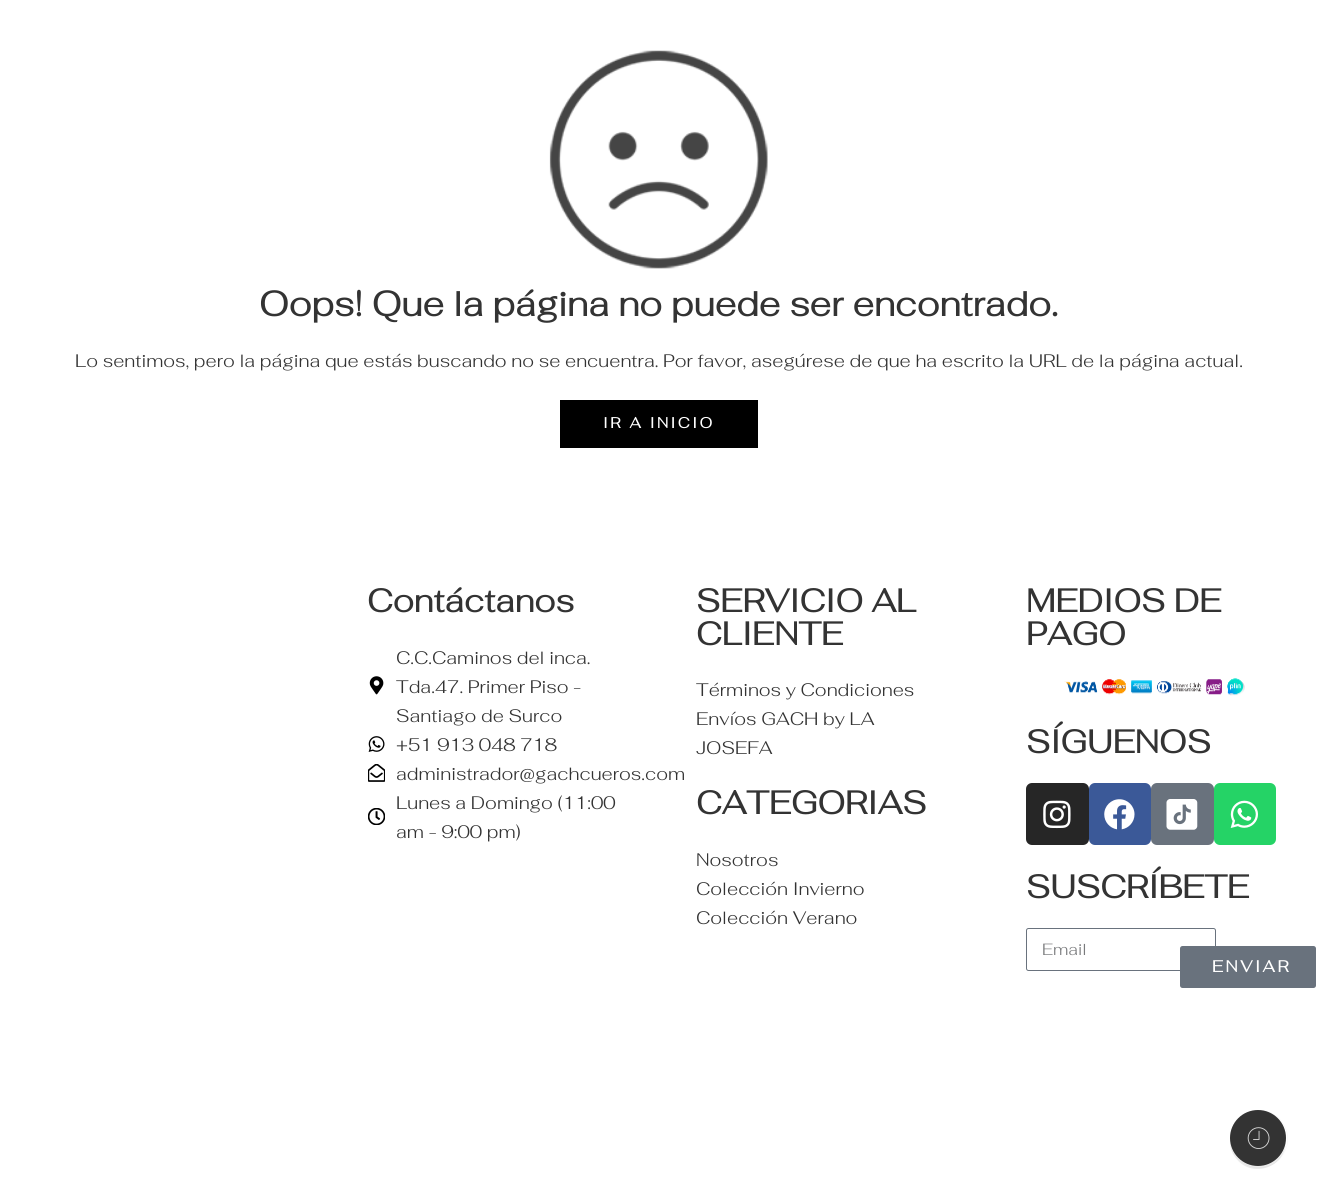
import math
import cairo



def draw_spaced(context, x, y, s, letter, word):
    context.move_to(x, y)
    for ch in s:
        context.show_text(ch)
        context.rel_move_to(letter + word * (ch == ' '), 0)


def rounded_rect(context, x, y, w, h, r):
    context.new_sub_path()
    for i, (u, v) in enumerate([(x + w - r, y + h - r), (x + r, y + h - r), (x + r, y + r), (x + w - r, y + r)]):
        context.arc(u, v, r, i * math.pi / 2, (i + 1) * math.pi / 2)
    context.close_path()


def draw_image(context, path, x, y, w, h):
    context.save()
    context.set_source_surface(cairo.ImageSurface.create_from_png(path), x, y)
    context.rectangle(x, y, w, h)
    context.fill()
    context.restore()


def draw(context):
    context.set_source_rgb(1, 1, 1)
    context.paint()
    draw_image(context, "images/1.png", 549, 50, 219, 219)
    context.set_source_rgb(0, 0, 0)
    context.rectangle(560, 400, 198, 48)
    context.fill()
    draw_image(context, "images/2.png", 369, 676, 15, 19)
    draw_image(context, "images/3.png", 368, 736, 17, 16)
    draw_image(context, "images/4.png", 368, 764, 17, 18)
    draw_image(context, "images/5.png", 368, 808, 17, 17)
    draw_image(context, "images/6.png", 1064, 678, 181, 18)
    context.set_source_rgb(38 / 255, 38 / 255, 38 / 255)
    rounded_rect(context, 1026, 783, 63, 62, 6)
    context.fill()
    draw_image(context, "images/7.png", 1043, 800, 28, 29)
    context.set_source_rgb(59 / 255, 89 / 255, 152 / 255)
    rounded_rect(context, 1089, 783, 62, 62, 6)
    context.fill()
    draw_image(context, "images/8.png", 1104, 799, 31, 31)
    context.set_source_rgb(105 / 255, 114 / 255, 125 / 255)
    rounded_rect(context, 1151, 783, 63, 62, 6)
    context.fill()
    draw_image(context, "images/9.png", 1166, 799, 32, 31)
    context.set_source_rgb(37 / 255, 211 / 255, 102 / 255)
    rounded_rect(context, 1214, 783, 62, 62, 6)
    context.fill()
    draw_image(context, "images/10.png", 1230, 800, 28, 28)
    rounded_rect(context, 1026.5, 928.5, 189, 42, 2)
    context.set_source_rgb(105 / 255, 114 / 255, 125 / 255)
    context.set_line_width(1)
    context.stroke()
    rounded_rect(context, 1180, 946, 136, 42, 2.5)
    context.fill()
    context.arc(1259, 1139, 28.7, 0, 2 * math.pi)
    context.set_source_rgb(247 / 255, 247 / 255, 247 / 255)
    context.set_line_width(0.6)
    context.stroke()
    context.set_source_rgba(0, 0, 0, 0.08)
    context.new_path()
    context.move_to(1230, 1140)
    context.curve_to(1230, 1146, 1231, 1152, 1235, 1157)
    context.curve_to(1250, 1179, 1285, 1169, 1286, 1142)
    context.curve_to(1281, 1175, 1232, 1173, 1230, 1140)
    context.close_path()
    context.fill()
    context.set_source_rgb(51 / 255, 51 / 255, 51 / 255)
    context.arc(1258, 1138, 28, 0, 2 * math.pi)
    context.fill()
    draw_image(context, "images/11.png", 1247, 1127, 23, 22)
    context.select_font_face("Fahkwang", cairo.FontSlant.NORMAL, cairo.FontWeight.BOLD)
    context.set_font_size(35)
    context.move_to(259, 316)
    context.show_text("Oops! Que la página no puede ser encontrado.")
    context.select_font_face("Fahkwang Light")
    context.set_font_size(18.12)
    context.move_to(75, 367)
    context.show_text("Lo sentimos, pero la página que estás buscando no se encuentra. Por favor, asegúrese de que ha escrito la URL de la página actual.")
    context.select_font_face("Fahkwang", cairo.FontSlant.NORMAL, cairo.FontWeight.BOLD)
    context.set_font_size(15)
    context.set_source_rgb(1, 1, 1)
    draw_spaced(context, 603, 428, "IR A INICIO", 2.5, 0)
    context.set_font_size(32.5)
    context.set_source_rgb(51 / 255, 51 / 255, 51 / 255)
    context.move_to(367, 612)
    context.show_text("Contáctanos")
    context.select_font_face("Fahkwang Light")
    context.set_font_size(18.12)
    context.move_to(396, 664)
    context.show_text("C.C.Caminos del inca.")
    context.move_to(396, 693)
    context.show_text("Tda.47. Primer Piso -")
    context.move_to(396, 722)
    context.show_text("Santiago de Surco")
    context.move_to(396, 751)
    context.show_text("+51 913 048 718")
    context.move_to(396, 780)
    context.show_text("administrador@gachcueros.com")
    context.move_to(396, 809)
    context.show_text("Lunes a Domingo (11:00")
    context.move_to(396, 838)
    context.show_text("am - 9:00 pm)")
    context.select_font_face("Fahkwang", cairo.FontSlant.NORMAL, cairo.FontWeight.BOLD)
    context.set_font_size(32.5)
    context.move_to(696, 612)
    context.show_text("SERVICIO AL")
    context.move_to(696, 645)
    context.show_text("CLIENTE")
    context.select_font_face("Fahkwang Light")
    context.set_font_size(18.12)
    context.move_to(696, 696)
    context.show_text("Términos y Condiciones")
    context.move_to(696, 725)
    context.show_text("Envíos GACH by LA")
    context.move_to(696, 754)
    context.show_text("JOSEFA")
    context.select_font_face("Fahkwang", cairo.FontSlant.NORMAL, cairo.FontWeight.BOLD)
    context.set_font_size(32.5)
    context.move_to(696, 814)
    context.show_text("CATEGORIAS")
    context.select_font_face("Fahkwang Light")
    context.set_font_size(18.12)
    context.move_to(696, 866)
    context.show_text("Nosotros")
    context.move_to(696, 895)
    context.show_text("Colección Invierno")
    context.move_to(696, 924)
    context.show_text("Colección Verano")
    context.select_font_face("Fahkwang", cairo.FontSlant.NORMAL, cairo.FontWeight.BOLD)
    context.set_font_size(32.5)
    context.move_to(1026, 612)
    context.show_text("MEDIOS DE")
    context.move_to(1026, 645)
    context.show_text("PAGO")
    context.move_to(1026, 753)
    context.show_text("SÍGUENOS")
    context.move_to(1026, 898)
    context.show_text("SUSCRÍBETE")
    context.select_font_face("Fahkwang Light")
    context.set_font_size(16.25)
    context.set_source_rgb(121 / 255, 122 / 255, 124 / 255)
    context.move_to(1042, 955)
    context.show_text("Email")
    context.select_font_face("Fahkwang", cairo.FontSlant.NORMAL, cairo.FontWeight.BOLD)
    context.set_source_rgb(1, 1, 1)
    draw_spaced(context, 1212, 972, "ENVIAR", 2.5, 0)


surface = cairo.ImageSurface(cairo.Format.RGB24, 1317, 1197)
context = cairo.Context(surface)
options = cairo.FontOptions()
options.set_hint_metrics(cairo.HintMetrics.OFF)
options.set_hint_style(cairo.HintStyle.NONE)
context.set_font_options(options)
context.set_miter_limit(4)
draw(context)
surface.write_to_png("out.png")
